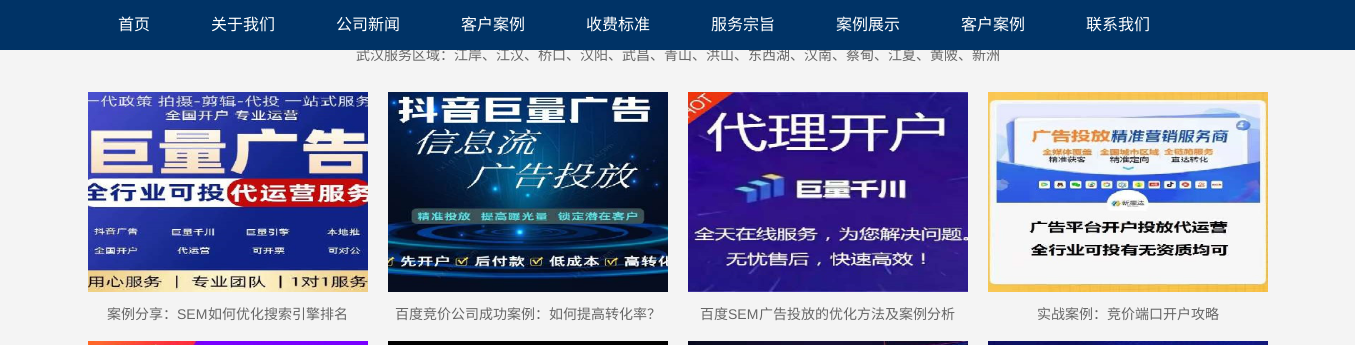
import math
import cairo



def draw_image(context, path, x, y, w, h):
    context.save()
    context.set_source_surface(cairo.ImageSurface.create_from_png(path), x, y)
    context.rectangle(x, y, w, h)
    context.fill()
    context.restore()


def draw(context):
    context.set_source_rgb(244 / 255, 244 / 255, 244 / 255)
    context.paint()
    draw_image(context, "images/1.png", 88, 92, 280, 200)
    draw_image(context, "images/2.png", 388, 92, 280, 200)
    draw_image(context, "images/3.png", 688, 92, 280, 200)
    draw_image(context, "images/4.png", 988, 92, 280, 200)
    draw_image(context, "images/5.png", 88, 341, 280, 4)
    context.set_source_rgb(1 / 255, 1 / 255, 1 / 255)
    context.rectangle(388, 341, 280, 4)
    context.fill()
    draw_image(context, "images/6.png", 688, 341, 280, 4)
    draw_image(context, "images/7.png", 988, 341, 280, 4)
    context.select_font_face("Noto Sans CJK SC")
    context.set_font_size(14)
    context.set_source_rgb(102 / 255, 102 / 255, 102 / 255)
    context.move_to(356, 60)
    context.show_text("武汉服务区域：江岸、江汉、桥口、汉阳、武昌、青山、洪山、东西湖、汉南、蔡甸、江夏、黄陂、新洲")
    context.set_source_rgb(0, 51 / 255, 102 / 255)
    context.rectangle(0, 0, 1355, 50)
    context.fill()
    context.set_font_size(16)
    context.set_source_rgb(1, 1, 1)
    context.move_to(1086, 30)
    context.show_text("联系我们")
    context.move_to(961, 30)
    context.show_text("客户案例")
    context.move_to(836, 30)
    context.show_text("案例展示")
    context.move_to(711, 30)
    context.show_text("服务宗旨")
    context.move_to(586, 30)
    context.show_text("收费标准")
    context.move_to(461, 30)
    context.show_text("客户案例")
    context.move_to(336, 30)
    context.show_text("公司新闻")
    context.move_to(211, 30)
    context.show_text("关于我们")
    context.move_to(118, 30)
    context.show_text("首页")
    context.set_font_size(14)
    context.set_source_rgb(102 / 255, 102 / 255, 102 / 255)
    context.move_to(107, 319)
    context.show_text("案例分享：")
    context.select_font_face("Liberation Sans")
    context.move_to(177, 319)
    context.show_text("SEM")
    context.select_font_face("Noto Sans CJK SC")
    context.move_to(208, 319)
    context.show_text("如何优化搜索引擎排名")
    context.move_to(395, 319)
    context.show_text("百度竞价公司成功案例：如何提高转化率？")
    context.move_to(700, 319)
    context.show_text("百度")
    context.select_font_face("Liberation Sans")
    context.move_to(728, 319)
    context.show_text("SEM")
    context.select_font_face("Noto Sans CJK SC")
    context.move_to(759, 319)
    context.show_text("广告投放的优化方法及案例分析")
    context.move_to(1037, 319)
    context.show_text("实战案例：竞价端口开户攻略")


surface = cairo.ImageSurface(cairo.Format.RGB24, 1355, 345)
context = cairo.Context(surface)
options = cairo.FontOptions()
options.set_hint_metrics(cairo.HintMetrics.OFF)
options.set_hint_style(cairo.HintStyle.NONE)
context.set_font_options(options)
context.set_miter_limit(4)
draw(context)
surface.write_to_png("out.png")
